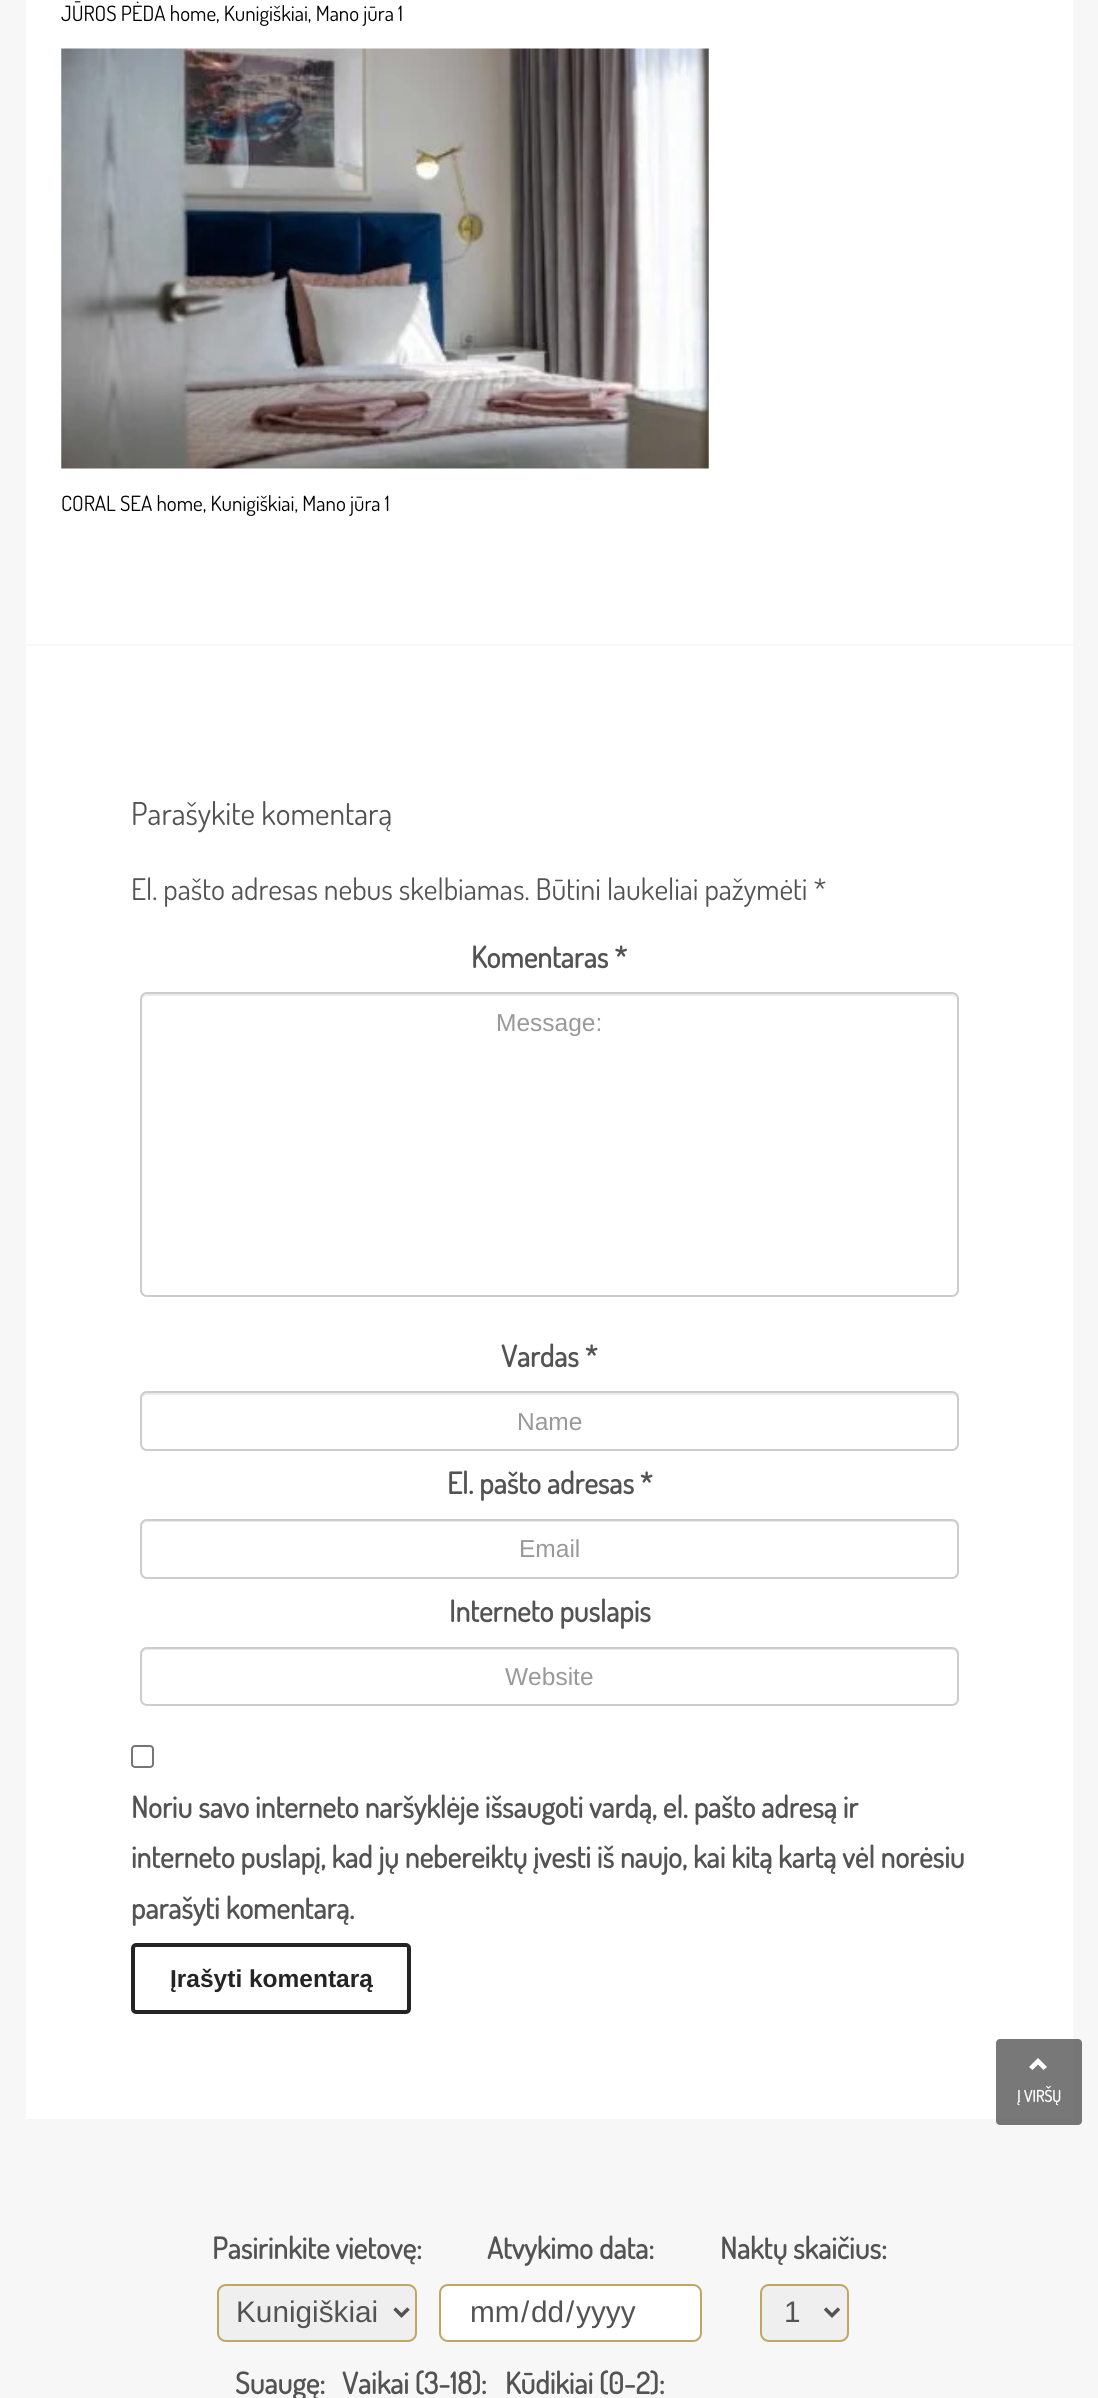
import math
import cairo



def rounded_rect(context, x, y, w, h, r):
    context.new_sub_path()
    for i, (u, v) in enumerate([(x + w - r, y + h - r), (x + r, y + h - r), (x + r, y + r), (x + w - r, y + r)]):
        context.arc(u, v, r, i * math.pi / 2, (i + 1) * math.pi / 2)
    context.close_path()


def draw_image(context, path, x, y, w, h):
    context.save()
    context.set_source_surface(cairo.ImageSurface.create_from_png(path), x, y)
    context.rectangle(x, y, w, h)
    context.fill()
    context.restore()


def draw(context):
    context.set_source_rgb(247 / 255, 247 / 255, 247 / 255)
    context.paint()
    context.set_source_rgb(1, 1, 1)
    context.rectangle(26, 0, 1047, 644)
    context.fill()
    draw_image(context, "images/1.png", 61, 48, 648, 421)
    context.rectangle(26, 646, 1047, 1473)
    context.fill()
    context.set_source_rgb(236 / 255, 236 / 255, 236 / 255)
    context.new_path()
    context.move_to(147, 996)
    context.line_to(952, 996)
    context.curve_to(955, 996, 957, 998, 957, 1001)
    context.line_to(957, 999)
    context.curve_to(957, 996, 955, 994, 952, 994)
    context.line_to(147, 994)
    context.curve_to(144, 994, 142, 996, 142, 999)
    context.line_to(142, 1001)
    context.curve_to(142, 998, 144, 996, 147, 996)
    context.close_path()
    context.fill()
    rounded_rect(context, 141, 993, 817, 303, 6)
    context.set_source_rgb(204 / 255, 204 / 255, 204 / 255)
    context.stroke()
    context.set_source_rgb(236 / 255, 236 / 255, 236 / 255)
    context.new_path()
    context.move_to(147, 1395)
    context.line_to(952, 1395)
    context.curve_to(955, 1395, 957, 1397, 957, 1400)
    context.line_to(957, 1398)
    context.curve_to(957, 1395, 955, 1393, 952, 1393)
    context.line_to(147, 1393)
    context.curve_to(144, 1393, 142, 1395, 142, 1398)
    context.line_to(142, 1400)
    context.curve_to(142, 1397, 144, 1395, 147, 1395)
    context.close_path()
    context.fill()
    rounded_rect(context, 141, 1392, 817, 58, 6)
    context.set_source_rgb(204 / 255, 204 / 255, 204 / 255)
    context.stroke()
    context.set_source_rgb(236 / 255, 236 / 255, 236 / 255)
    context.new_path()
    context.move_to(147, 1522)
    context.line_to(952, 1522)
    context.curve_to(955, 1522, 957, 1525, 957, 1528)
    context.line_to(957, 1526)
    context.curve_to(957, 1523, 955, 1521, 952, 1521)
    context.line_to(147, 1521)
    context.curve_to(144, 1521, 142, 1523, 142, 1526)
    context.line_to(142, 1528)
    context.curve_to(142, 1525, 144, 1522, 147, 1522)
    context.close_path()
    context.fill()
    rounded_rect(context, 141, 1520, 817, 58, 6)
    context.set_source_rgb(204 / 255, 204 / 255, 204 / 255)
    context.stroke()
    context.set_source_rgb(236 / 255, 236 / 255, 236 / 255)
    context.new_path()
    context.move_to(147, 1650)
    context.line_to(952, 1650)
    context.curve_to(955, 1650, 957, 1653, 957, 1656)
    context.line_to(957, 1654)
    context.curve_to(957, 1651, 955, 1649, 952, 1649)
    context.line_to(147, 1649)
    context.curve_to(144, 1649, 142, 1651, 142, 1654)
    context.line_to(142, 1656)
    context.curve_to(142, 1653, 144, 1650, 147, 1650)
    context.close_path()
    context.fill()
    rounded_rect(context, 141, 1648, 817, 57, 6)
    context.set_source_rgb(204 / 255, 204 / 255, 204 / 255)
    context.stroke()
    rounded_rect(context, 132, 1746, 21, 21, 3)
    context.set_source_rgb(118 / 255, 118 / 255, 118 / 255)
    context.stroke()
    rounded_rect(context, 133, 1945, 276, 67, 3)
    context.set_source_rgb(36 / 255, 36 / 255, 36 / 255)
    context.set_line_width(4)
    context.stroke()
    context.set_source_rgb(239 / 255, 239 / 255, 239 / 255)
    rounded_rect(context, 218, 2285, 198, 56, 8)
    context.fill_preserve()
    context.set_source_rgb(193 / 255, 165 / 255, 98 / 255)
    context.set_line_width(2)
    context.stroke()
    context.new_path()
    context.move_to(394.5, 2308.5)
    context.line_to(401.5, 2315.5)
    context.line_to(408.5, 2308.5)
    context.set_source_rgb(83 / 255, 83 / 255, 83 / 255)
    context.set_line_width(3.5)
    context.stroke()
    context.set_source_rgb(1, 1, 1)
    rounded_rect(context, 440, 2285, 261, 56, 8)
    context.fill_preserve()
    context.set_source_rgb(193 / 255, 165 / 255, 98 / 255)
    context.set_line_width(2)
    context.stroke()
    context.set_source_rgb(239 / 255, 239 / 255, 239 / 255)
    rounded_rect(context, 761, 2285, 87, 56, 8)
    context.fill_preserve()
    context.set_source_rgb(193 / 255, 165 / 255, 98 / 255)
    context.stroke()
    context.new_path()
    context.move_to(825, 2308.5)
    context.line_to(832, 2315.5)
    context.line_to(839, 2308.5)
    context.set_source_rgb(83 / 255, 83 / 255, 83 / 255)
    context.set_line_width(3.5)
    context.stroke()
    context.set_source_rgba(64 / 255, 64 / 255, 64 / 255, 0.7)
    rounded_rect(context, 996, 2039, 86, 86, 4)
    context.fill()
    context.set_source_rgb(1, 1, 1)
    context.new_path()
    context.move_to(1038, 2058)
    context.line_to(1047, 2067)
    context.line_to(1043.5, 2070)
    context.line_to(1038, 2064.5)
    context.line_to(1032.5, 2070)
    context.line_to(1029, 2067)
    context.close_path()
    context.fill()
    context.select_font_face("Dosis")
    context.set_font_size(21)
    context.set_source_rgb(0, 0, 0)
    context.move_to(61, 21)
    context.show_text("JŪROS PĖDA home, Kunigiškiai, Mano jūra 1")
    context.move_to(61, 511)
    context.show_text("CORAL SEA home, Kunigiškiai, Mano jūra 1")
    context.set_font_size(31.5)
    context.set_source_rgb(83 / 255, 83 / 255, 83 / 255)
    context.move_to(131, 825)
    context.show_text("Parašykite komentarą")
    context.set_font_size(29.75)
    context.move_to(131, 900)
    context.show_text("El. pašto adresas nebus skelbiamas. Būtini laukeliai pažymėti *")
    context.select_font_face("Dosis", cairo.FontSlant.NORMAL, cairo.FontWeight.BOLD)
    context.move_to(471, 968)
    context.show_text("Komentaras *")
    context.select_font_face("Liberation Sans")
    context.set_font_size(24.5)
    context.set_source_rgb(153 / 255, 153 / 255, 153 / 255)
    context.move_to(496, 1031)
    context.show_text("Message:")
    context.select_font_face("Dosis", cairo.FontSlant.NORMAL, cairo.FontWeight.BOLD)
    context.set_font_size(29.75)
    context.set_source_rgb(83 / 255, 83 / 255, 83 / 255)
    context.move_to(501, 1367)
    context.show_text("Vardas *")
    context.select_font_face("Liberation Sans")
    context.set_font_size(24.5)
    context.set_source_rgb(153 / 255, 153 / 255, 153 / 255)
    context.move_to(517, 1430)
    context.show_text("Name")
    context.select_font_face("Dosis", cairo.FontSlant.NORMAL, cairo.FontWeight.BOLD)
    context.set_font_size(29.75)
    context.set_source_rgb(83 / 255, 83 / 255, 83 / 255)
    context.move_to(447, 1494)
    context.show_text("El. pašto adresas *")
    context.select_font_face("Liberation Sans")
    context.set_font_size(24.5)
    context.set_source_rgb(153 / 255, 153 / 255, 153 / 255)
    context.move_to(519, 1557)
    context.show_text("Email")
    context.select_font_face("Dosis", cairo.FontSlant.NORMAL, cairo.FontWeight.BOLD)
    context.set_font_size(29.75)
    context.set_source_rgb(83 / 255, 83 / 255, 83 / 255)
    context.move_to(449, 1622)
    context.show_text("Interneto puslapis")
    context.select_font_face("Liberation Sans")
    context.set_font_size(24.5)
    context.set_source_rgb(153 / 255, 153 / 255, 153 / 255)
    context.move_to(505, 1685)
    context.show_text("Website")
    context.select_font_face("Dosis", cairo.FontSlant.NORMAL, cairo.FontWeight.BOLD)
    context.set_font_size(29.75)
    context.set_source_rgb(83 / 255, 83 / 255, 83 / 255)
    context.move_to(131, 1818)
    context.show_text("Noriu savo interneto naršyklėje išsaugoti vardą, el. pašto adresą ir")
    context.move_to(131, 1868)
    context.show_text("interneto puslapį, kad jų nebereiktų įvesti iš naujo, kai kitą kartą vėl norėsiu")
    context.move_to(131, 1919)
    context.show_text("parašyti komentarą.")
    context.select_font_face("Liberation Sans", cairo.FontSlant.NORMAL, cairo.FontWeight.BOLD)
    context.set_font_size(24.5)
    context.set_source_rgb(36 / 255, 36 / 255, 36 / 255)
    context.move_to(170, 1987)
    context.show_text("Įrašyti komentarą")
    context.select_font_face("Dosis", cairo.FontSlant.NORMAL, cairo.FontWeight.BOLD)
    context.set_font_size(29.75)
    context.set_source_rgb(83 / 255, 83 / 255, 83 / 255)
    context.move_to(212, 2259)
    context.show_text("Pasirinkite vietovę:")
    context.select_font_face("Liberation Sans")
    context.move_to(236, 2322)
    context.show_text("Kunigiškiai")
    context.select_font_face("Dosis", cairo.FontSlant.NORMAL, cairo.FontWeight.BOLD)
    context.move_to(487, 2259)
    context.show_text("Atvykimo data:")
    context.select_font_face("Liberation Sans")
    context.move_to(470, 2322)
    context.show_text("mm")
    context.move_to(521, 2322)
    context.show_text("/")
    context.move_to(531, 2322)
    context.show_text("dd")
    context.move_to(566, 2322)
    context.show_text("/")
    context.move_to(576, 2322)
    context.show_text("yyyy")
    context.select_font_face("Dosis", cairo.FontSlant.NORMAL, cairo.FontWeight.BOLD)
    context.move_to(720, 2259)
    context.show_text("Naktų skaičius:")
    context.select_font_face("Liberation Sans")
    context.move_to(784, 2322)
    context.show_text("1")
    context.select_font_face("Dosis", cairo.FontSlant.NORMAL, cairo.FontWeight.BOLD)
    context.move_to(235, 2394)
    context.show_text("Suaugę:")
    context.move_to(342, 2394)
    context.show_text("Vaikai (3-18):")
    context.move_to(505, 2394)
    context.show_text("Kūdikiai (0-2):")
    context.set_font_size(16)
    context.set_source_rgb(1, 1, 1)
    context.move_to(1017, 2102)
    context.show_text("Į VIRŠŲ")


surface = cairo.ImageSurface(cairo.Format.RGB24, 1098, 2398)
context = cairo.Context(surface)
options = cairo.FontOptions()
options.set_hint_metrics(cairo.HintMetrics.OFF)
options.set_hint_style(cairo.HintStyle.NONE)
context.set_font_options(options)
context.set_miter_limit(4)
draw(context)
surface.write_to_png("out.png")
